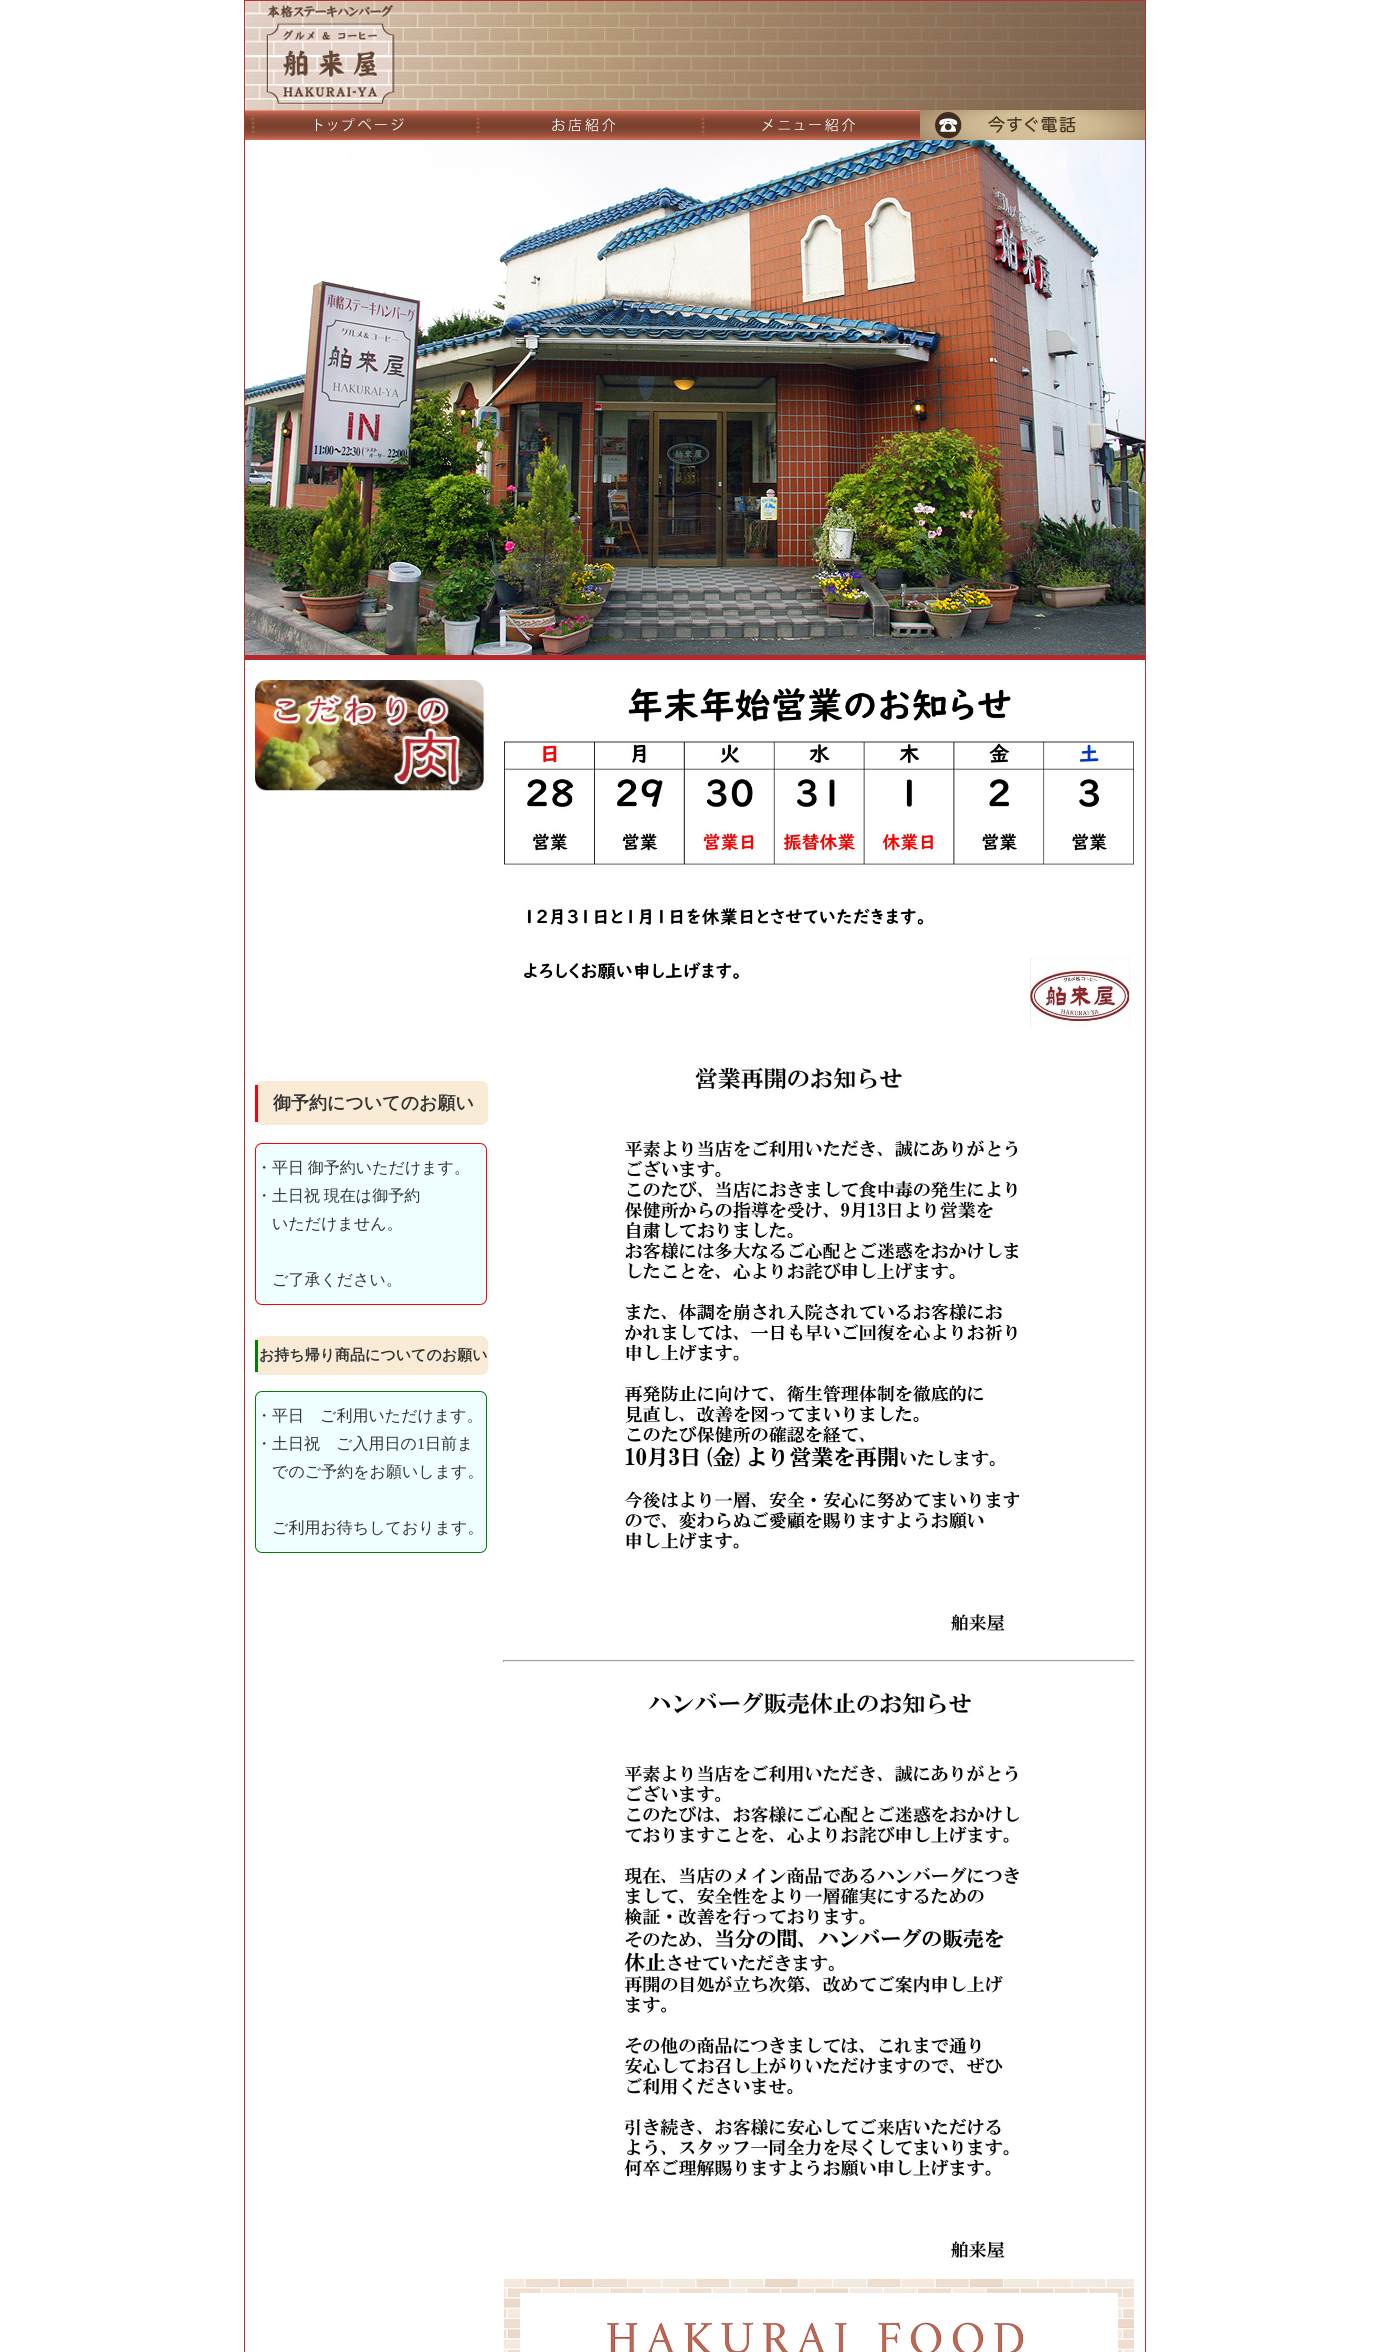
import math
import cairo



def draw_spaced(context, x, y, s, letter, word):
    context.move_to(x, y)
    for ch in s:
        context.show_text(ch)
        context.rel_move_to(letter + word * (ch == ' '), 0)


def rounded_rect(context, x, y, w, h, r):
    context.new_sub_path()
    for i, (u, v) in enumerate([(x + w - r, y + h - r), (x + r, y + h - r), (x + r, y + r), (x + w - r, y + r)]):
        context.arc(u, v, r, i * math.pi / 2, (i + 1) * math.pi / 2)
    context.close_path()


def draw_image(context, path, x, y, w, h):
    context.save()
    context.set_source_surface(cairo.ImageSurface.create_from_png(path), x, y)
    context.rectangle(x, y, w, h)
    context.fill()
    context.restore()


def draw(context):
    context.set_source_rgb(1, 1, 1)
    context.paint()
    context.set_source_rgb(176 / 255, 51 / 255, 51 / 255)
    context.rectangle(244, 0, 902, 2352)
    context.fill()
    context.set_source_rgb(1, 1, 1)
    context.rectangle(245, 660, 900, 1692)
    context.fill()
    draw_image(context, "images/1.png", 245, 1, 900, 109)
    draw_image(context, "images/2.png", 245, 110, 225, 30)
    draw_image(context, "images/3.png", 470, 110, 225, 30)
    draw_image(context, "images/4.png", 695, 110, 225, 30)
    draw_image(context, "images/5.png", 920, 110, 225, 30)
    draw_image(context, "images/6.png", 245, 140, 900, 515)
    context.set_source_rgb(183 / 255, 40 / 255, 44 / 255)
    context.rectangle(245, 655, 900, 5)
    context.fill()
    draw_image(context, "images/7.png", 255, 680, 230, 111)
    context.set_source_rgb(250 / 255, 235 / 255, 215 / 255)
    rounded_rect(context, 255, 1081, 233, 44, 7)
    context.fill()
    context.set_source_rgb(1, 0, 0)
    context.rectangle(255, 1085, 3, 37)
    context.fill()
    context.set_source_rgb(239 / 255, 1, 1)
    rounded_rect(context, 255.5, 1143.5, 231, 161, 6.5)
    context.fill_preserve()
    context.set_source_rgb(1, 0, 0)
    context.set_line_width(1)
    context.stroke()
    context.set_source_rgb(250 / 255, 235 / 255, 215 / 255)
    rounded_rect(context, 255, 1336, 233, 39, 7)
    context.fill()
    context.set_source_rgb(0, 128 / 255, 0)
    context.rectangle(255, 1340, 3, 32)
    context.fill()
    context.set_source_rgb(239 / 255, 1, 1)
    rounded_rect(context, 255.5, 1391.5, 231, 161, 6.5)
    context.fill_preserve()
    context.set_source_rgb(0, 128 / 255, 0)
    context.stroke()
    draw_image(context, "images/8.png", 504, 688, 630, 339)
    draw_image(context, "images/9.png", 623, 1067, 396, 565)
    context.set_source_rgb(159 / 255, 159 / 255, 159 / 255)
    context.rectangle(503, 1660, 632, 1)
    context.fill()
    context.set_source_rgb(238 / 255, 238 / 255, 238 / 255)
    context.rectangle(1134, 1660, 1, 2)
    context.fill()
    context.rectangle(503, 1661, 632, 1)
    context.fill()
    context.set_source_rgb(159 / 255, 159 / 255, 159 / 255)
    context.rectangle(503, 1660, 1, 2)
    context.fill()
    draw_image(context, "images/10.png", 623, 1692, 396, 568)
    draw_image(context, "images/11.png", 504, 2279, 630, 73)
    context.select_font_face("WenQuanYi Zen Hei", cairo.FontSlant.NORMAL, cairo.FontWeight.BOLD)
    context.set_font_size(18)
    context.set_source_rgb(51 / 255, 51 / 255, 51 / 255)
    context.move_to(273, 1109)
    context.show_text("御予約についてのお願い")
    context.select_font_face("WenQuanYi Zen Hei Medium")
    context.set_font_size(16)
    draw_spaced(context, 256, 1173, "・平日 御予約いただけます。", 0, -1)
    draw_spaced(context, 256, 1201, "・土日祝 現在は御予約", 0, -1)
    context.move_to(272, 1229)
    context.show_text("いただけません。")
    context.move_to(272, 1285)
    context.show_text("ご了承ください。")
    context.select_font_face("WenQuanYi Zen Hei", cairo.FontSlant.NORMAL, cairo.FontWeight.BOLD)
    context.set_font_size(15)
    context.move_to(259, 1360)
    context.show_text("お持ち帰り商品についてのお願い")
    context.select_font_face("WenQuanYi Zen Hei Medium")
    context.set_font_size(16)
    context.move_to(256, 1421)
    context.show_text("・平日　ご利用いただけます。")
    context.move_to(256, 1449)
    context.show_text("・土日祝　ご入用日の")
    context.select_font_face("Liberation Serif")
    context.move_to(417, 1449)
    context.show_text("1")
    context.select_font_face("WenQuanYi Zen Hei Medium")
    context.move_to(425, 1449)
    context.show_text("日前ま")
    context.move_to(272, 1477)
    context.show_text("でのご予約をお願いします。")
    context.move_to(272, 1533)
    context.show_text("ご利用お待ちしております。")


surface = cairo.ImageSurface(cairo.Format.RGB24, 1390, 2352)
context = cairo.Context(surface)
options = cairo.FontOptions()
options.set_hint_metrics(cairo.HintMetrics.OFF)
options.set_hint_style(cairo.HintStyle.NONE)
context.set_font_options(options)
context.set_miter_limit(4)
draw(context)
surface.write_to_png("out.png")
